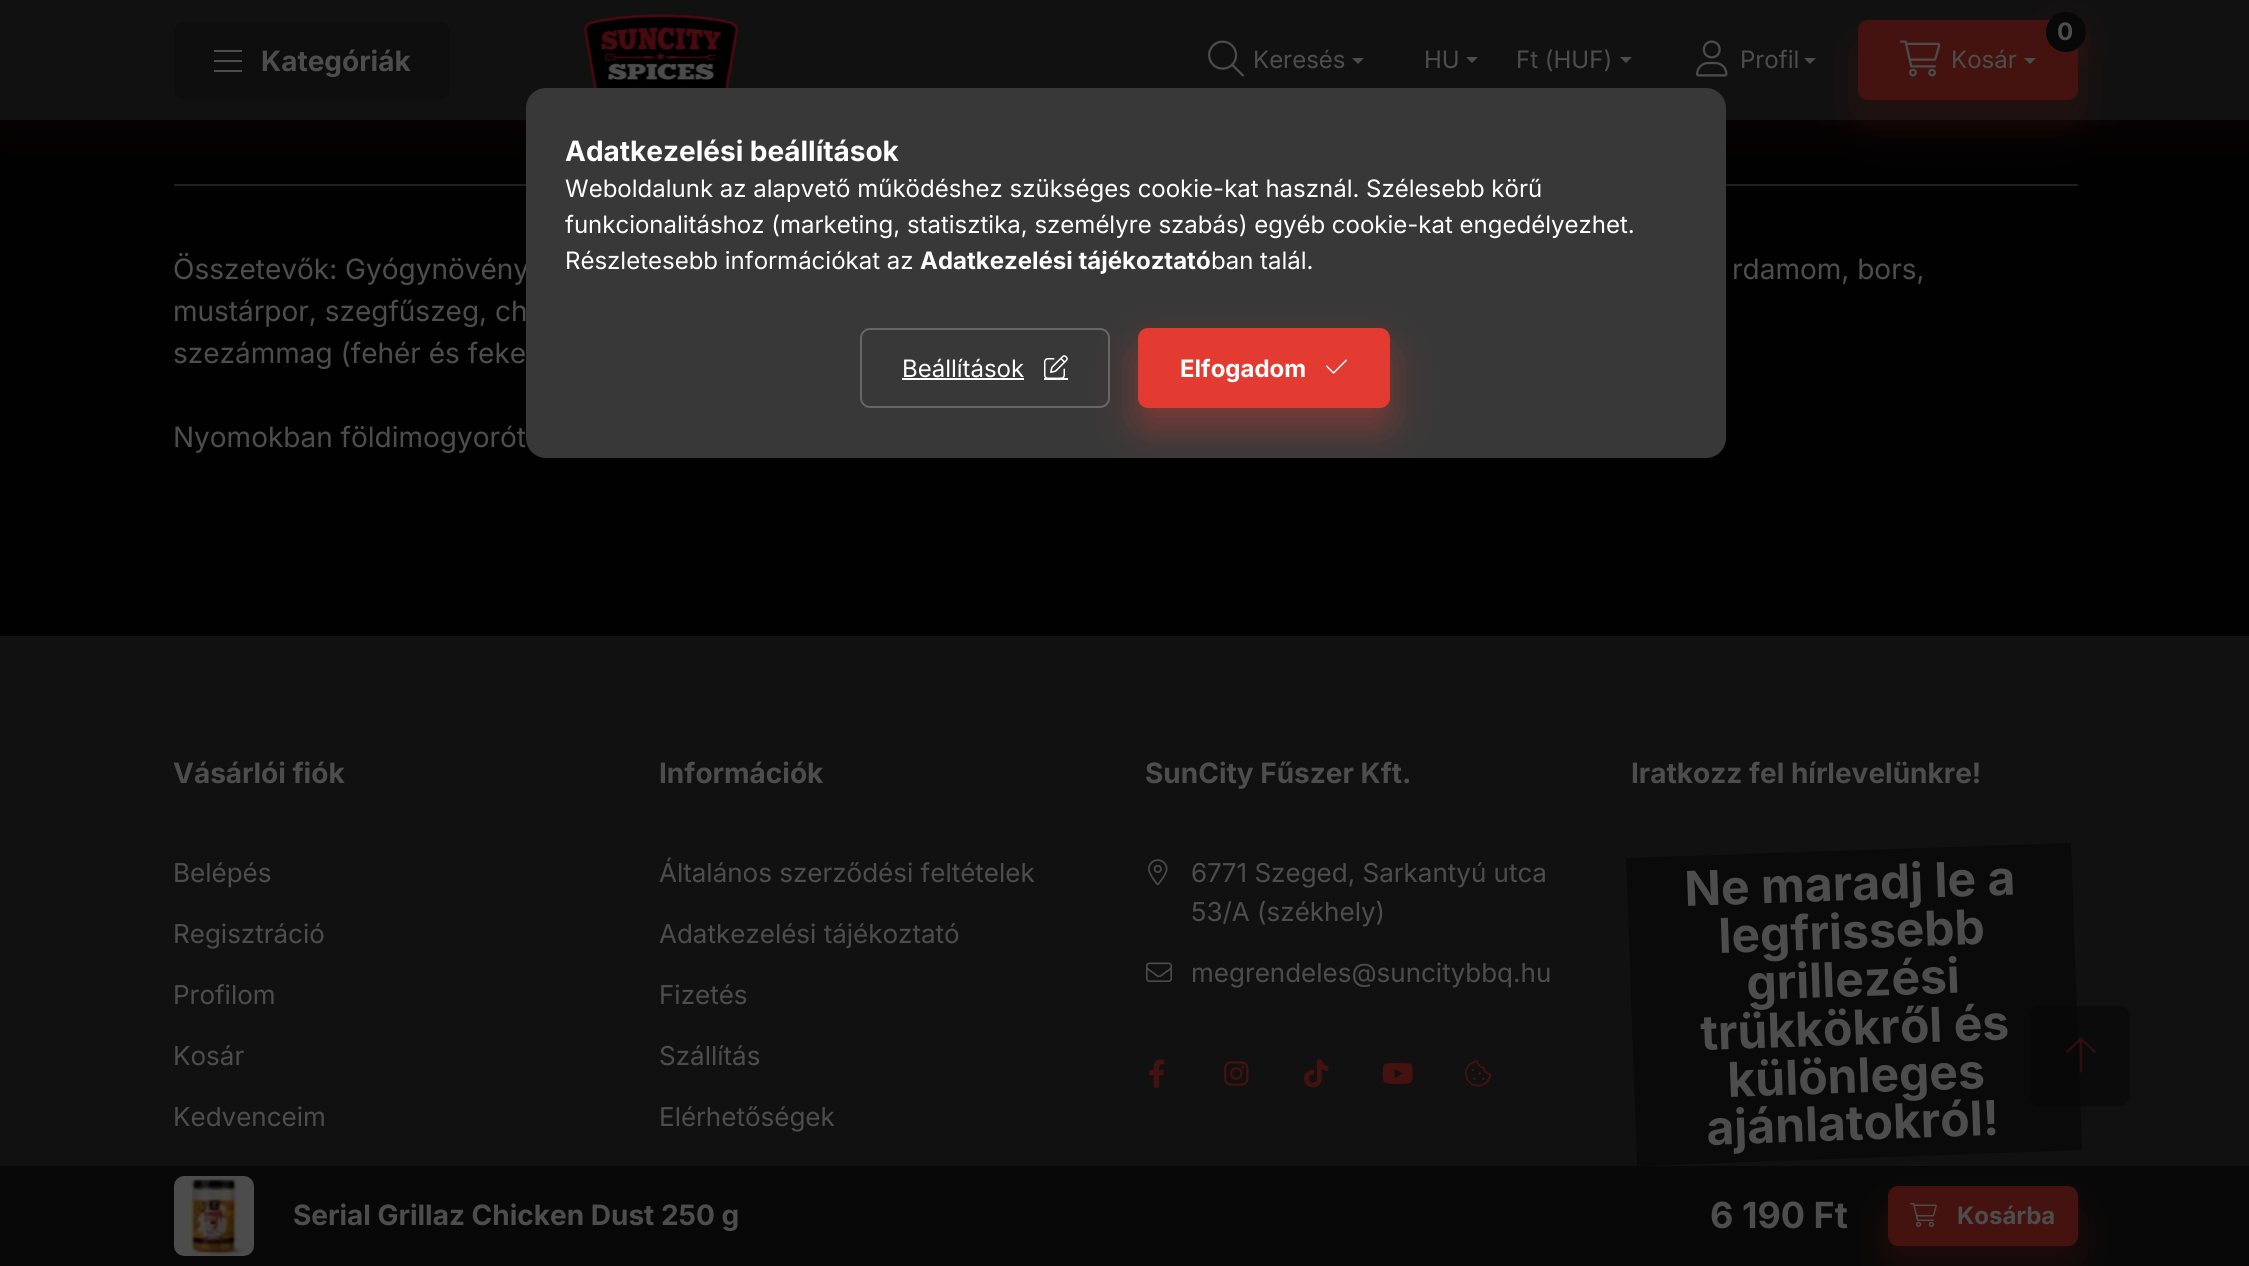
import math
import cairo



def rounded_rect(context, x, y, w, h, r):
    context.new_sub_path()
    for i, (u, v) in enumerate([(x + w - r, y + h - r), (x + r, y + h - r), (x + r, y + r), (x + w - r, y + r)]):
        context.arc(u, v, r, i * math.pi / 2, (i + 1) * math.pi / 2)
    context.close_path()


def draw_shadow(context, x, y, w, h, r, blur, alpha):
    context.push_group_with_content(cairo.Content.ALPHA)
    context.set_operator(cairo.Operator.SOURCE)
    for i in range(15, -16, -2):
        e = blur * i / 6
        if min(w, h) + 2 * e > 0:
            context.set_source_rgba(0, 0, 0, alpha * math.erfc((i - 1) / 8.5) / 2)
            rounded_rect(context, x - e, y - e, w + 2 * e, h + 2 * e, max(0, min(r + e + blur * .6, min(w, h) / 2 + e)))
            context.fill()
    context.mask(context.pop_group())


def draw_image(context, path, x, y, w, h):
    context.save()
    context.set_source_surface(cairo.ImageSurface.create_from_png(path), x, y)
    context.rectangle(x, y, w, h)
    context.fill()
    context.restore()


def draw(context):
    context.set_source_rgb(1 / 255, 1 / 255, 1 / 255)
    context.paint()
    context.set_source_rgb(31 / 255, 31 / 255, 31 / 255)
    context.rectangle(174, 184, 1904, 2)
    context.fill()
    context.set_source_rgb(68 / 255, 18 / 255, 15 / 255)
    draw_shadow(context, 0, 0, 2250, 120, 0, 30, 0.2)
    context.set_source_rgb(17 / 255, 17 / 255, 17 / 255)
    context.rectangle(0, 0, 2249, 120)
    context.fill()
    context.set_source_rgb(14 / 255, 14 / 255, 14 / 255)
    rounded_rect(context, 174, 22, 276, 78, 10)
    context.fill()
    context.set_source_rgb(77 / 255, 77 / 255, 77 / 255)
    context.rectangle(214, 50, 28, 2)
    context.fill()
    context.rectangle(214, 60, 28, 2)
    context.fill()
    context.rectangle(214, 70, 28, 2)
    context.fill()
    draw_image(context, "images/1.png", 583, 14, 156, 74)
    draw_image(context, "images/2.png", 1208, 40, 36, 37)
    context.new_path()
    context.move_to(1352, 58)
    context.line_to(1364, 58)
    context.line_to(1358, 64)
    context.close_path()
    context.fill()
    context.new_path()
    context.move_to(1466, 57)
    context.line_to(1478, 57)
    context.line_to(1472, 63)
    context.close_path()
    context.fill()
    context.new_path()
    context.move_to(1620, 57)
    context.line_to(1632, 57)
    context.line_to(1626, 63)
    context.close_path()
    context.fill()
    draw_image(context, "images/3.png", 1696, 40, 32, 37)
    context.set_source_rgb(68 / 255, 18 / 255, 15 / 255)
    draw_shadow(context, 1858, 40, 220, 80, 10, 20, 0.4)
    context.set_source_rgb(77 / 255, 77 / 255, 77 / 255)
    context.new_path()
    context.move_to(1804, 58)
    context.line_to(1816, 58)
    context.line_to(1810, 64)
    context.close_path()
    context.fill()
    context.set_source_rgb(68 / 255, 18 / 255, 15 / 255)
    rounded_rect(context, 1858, 20, 220, 80, 10)
    context.fill()
    context.set_source_rgb(68 / 255, 18 / 255, 15 / 255)
    draw_shadow(context, 2046, 22, 40, 40, 20, 10, 0.4)
    context.set_source_rgb(8 / 255, 8 / 255, 8 / 255)
    context.arc(2066, 32, 20, 0, 2 * math.pi)
    context.fill()
    draw_image(context, "images/4.png", 1900, 40, 41, 37)
    context.set_source_rgb(77 / 255, 77 / 255, 77 / 255)
    context.new_path()
    context.move_to(2024, 58)
    context.line_to(2036, 58)
    context.line_to(2030, 64)
    context.close_path()
    context.fill()
    context.set_source_rgb(17 / 255, 17 / 255, 17 / 255)
    context.rectangle(0, 636, 2249, 530)
    context.fill()
    context.set_source_rgb(68 / 255, 18 / 255, 15 / 255)
    draw_shadow(context, 1632, 1198, 282, 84, 10, 20, 0.4)
    context.set_source_rgb(8 / 255, 8 / 255, 8 / 255)
    context.rectangle(0, 1166, 2249, 100)
    context.fill()
    draw_image(context, "images/5.png", 174, 1176, 80, 80)
    context.set_source_rgb(10 / 255, 10 / 255, 10 / 255)
    context.new_path()
    context.move_to(1626, 858)
    context.line_to(2071, 843)
    context.line_to(2082, 1150)
    context.line_to(1637, 1166)
    context.close_path()
    context.fill()
    context.set_source_rgb(68 / 255, 18 / 255, 15 / 255)
    draw_shadow(context, 1888, 1206, 190, 60, 10, 20, 0.4)
    context.set_source_rgb(68 / 255, 18 / 255, 15 / 255)
    rounded_rect(context, 1888, 1186, 190, 60, 10)
    context.fill()
    draw_image(context, "images/6.png", 1910, 1203, 27, 24)
    draw_image(context, "images/7.png", 1148, 859, 20, 27)
    draw_image(context, "images/8.png", 1146, 962, 26, 20)
    draw_image(context, "images/9.png", 1149, 1059, 16, 29)
    draw_image(context, "images/10.png", 1224, 1061, 25, 25)
    draw_image(context, "images/11.png", 1304, 1059, 25, 29)
    draw_image(context, "images/12.png", 1382, 1063, 31, 21)
    draw_image(context, "images/13.png", 1464, 1060, 28, 27)
    context.set_source_rgba(8 / 255, 8 / 255, 8 / 255, 0.6)
    rounded_rect(context, 2030, 1006, 100, 100, 10)
    context.fill()
    draw_image(context, "images/16.png", 2066, 1037, 30, 36)
    context.select_font_face("Inter", cairo.FontSlant.NORMAL, cairo.FontWeight.BOLD)
    context.set_font_size(28)
    context.set_source_rgb(77 / 255, 77 / 255, 77 / 255)
    context.move_to(261, 71)
    context.show_text("Kategóriák")
    context.select_font_face("Inter")
    context.set_font_size(24)
    context.move_to(1253, 68)
    context.show_text("Keresés")
    context.move_to(1424, 68)
    context.show_text("HU")
    context.move_to(1516, 68)
    context.show_text("Ft (HUF)")
    context.move_to(1740, 68)
    context.show_text("Profil")
    context.select_font_face("Inter", cairo.FontSlant.NORMAL, cairo.FontWeight.BOLD)
    context.move_to(2057, 40)
    context.show_text("0")
    context.select_font_face("Inter")
    context.move_to(1951, 68)
    context.show_text("Kosár")
    context.set_font_size(28)
    context.move_to(173, 279)
    context.show_text("Összetevők: Gyógynövény")
    context.move_to(1732, 279)
    context.show_text("rdamom, bors,")
    context.move_to(173, 321)
    context.show_text("mustárpor, szegfűszeg, ch")
    context.move_to(173, 363)
    context.show_text("szezámmag (fehér és feke")
    context.move_to(173, 447)
    context.show_text("Nyomokban földimogyorót")
    context.select_font_face("Inter", cairo.FontSlant.NORMAL, cairo.FontWeight.BOLD)
    context.move_to(293, 1225)
    context.show_text("Serial Grillaz Chicken Dust 250 g")
    context.set_font_size(36)
    context.move_to(1710, 1228)
    context.show_text("6 190 Ft")
    context.set_font_size(24)
    context.move_to(1957, 1224)
    context.show_text("Kosárba")
    context.set_font_size(28)
    context.move_to(173, 783)
    context.show_text("Vásárlói fiók")
    context.select_font_face("Inter")
    context.set_font_size(26)
    context.move_to(173, 882)
    context.show_text("Belépés")
    context.move_to(173, 943)
    context.show_text("Regisztráció")
    context.move_to(173, 1004)
    context.show_text("Profilom")
    context.move_to(173, 1065)
    context.show_text("Kosár")
    context.move_to(173, 1126)
    context.show_text("Kedvenceim")
    context.select_font_face("Inter", cairo.FontSlant.NORMAL, cairo.FontWeight.BOLD)
    context.set_font_size(28)
    context.move_to(659, 783)
    context.show_text("Információk")
    context.select_font_face("Inter")
    context.set_font_size(26)
    context.move_to(659, 882)
    context.show_text("Általános szerződési feltételek")
    context.move_to(659, 943)
    context.show_text("Adatkezelési tájékoztató")
    context.move_to(659, 1004)
    context.show_text("Fizetés")
    context.move_to(659, 1065)
    context.show_text("Szállítás")
    context.move_to(659, 1126)
    context.show_text("Elérhetőségek")
    context.select_font_face("Inter", cairo.FontSlant.NORMAL, cairo.FontWeight.BOLD)
    context.set_font_size(28)
    context.move_to(1145, 783)
    context.show_text("SunCity Fűszer Kft.")
    context.select_font_face("Inter")
    context.set_font_size(26)
    context.move_to(1191, 882)
    context.show_text("6771 Szeged, Sarkantyú utca")
    context.move_to(1191, 921)
    context.show_text("53/A (székhely)")
    context.move_to(1191, 982)
    context.show_text("megrendeles@suncitybbq.hu")
    context.select_font_face("Inter", cairo.FontSlant.NORMAL, cairo.FontWeight.BOLD)
    context.set_font_size(28)
    context.move_to(1631, 783)
    context.show_text("Iratkozz fel hírlevelünkre!")
    context.set_font_size(48)
    context.save()
    context.translate(1685, 906)
    context.rotate(-2 * math.pi / 180)
    context.move_to(0, 0)
    context.show_text("Ne maradj le a")
    context.restore()
    context.save()
    context.translate(1719, 953)
    context.rotate(-2 * math.pi / 180)
    context.move_to(0, 0)
    context.show_text("legfrissebb")
    context.restore()
    context.save()
    context.translate(1747, 1000)
    context.rotate(-2 * math.pi / 180)
    context.move_to(0, 0)
    context.show_text("grillezési")
    context.restore()
    context.save()
    context.translate(1701, 1050)
    context.rotate(-2 * math.pi / 180)
    context.move_to(0, 0)
    context.show_text("trükkökről és")
    context.restore()
    context.save()
    context.translate(1728, 1097)
    context.rotate(-2 * math.pi / 180)
    context.move_to(0, 0)
    context.show_text("különleges")
    context.restore()
    context.save()
    context.translate(1707, 1145)
    context.rotate(-2 * math.pi / 180)
    context.move_to(0, 0)
    context.show_text("ajánlatokról!")
    context.restore()
    context.set_source_rgb(56 / 255, 56 / 255, 56 / 255)
    rounded_rect(context, 526, 88, 1200, 370, 20)
    context.fill()
    context.set_font_size(28)
    context.set_source_rgb(1, 1, 1)
    context.move_to(565, 161)
    context.show_text("Adatkezelési beállítások")
    context.select_font_face("Inter")
    context.set_font_size(24)
    context.move_to(565, 197)
    context.show_text("Weboldalunk az alapvető működéshez szükséges cookie-kat használ. Szélesebb körű")
    context.move_to(565, 233)
    context.show_text("funkcionalitáshoz (marketing, statisztika, személyre szabás) egyéb cookie-kat engedélyezhet.")
    context.move_to(565, 269)
    context.show_text("Részletesebb információkat az")
    context.select_font_face("Inter", cairo.FontSlant.NORMAL, cairo.FontWeight.BOLD)
    context.move_to(920, 269)
    context.show_text("Adatkezelési tájékoztató")
    context.select_font_face("Inter")
    context.move_to(1211, 269)
    context.show_text("ban talál.")
    rounded_rect(context, 861, 329, 248, 78, 9)
    context.set_source_rgb(102 / 255, 102 / 255, 102 / 255)
    context.stroke()
    context.set_source_rgb(1, 1, 1)
    context.move_to(902, 377)
    context.show_text("Beállítások")
    context.rectangle(902, 378, 122, 2)
    context.fill()
    draw_image(context, "images/14.png", 1044, 355, 24, 23)
    context.rectangle(1044, 378, 24, 2)
    context.fill()
    context.save()
    rounded_rect(context, 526, 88, 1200, 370, 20)
    context.clip()
    context.set_source_rgb(227 / 255, 59 / 255, 50 / 255)
    draw_shadow(context, 1138, 348, 252, 80, 10, 20, 0.4)
    context.restore()
    context.set_source_rgb(227 / 255, 59 / 255, 50 / 255)
    rounded_rect(context, 1139, 329, 250, 78, 9)
    context.fill_preserve()
    context.stroke()
    context.select_font_face("Inter", cairo.FontSlant.NORMAL, cairo.FontWeight.BOLD)
    context.set_source_rgb(1, 1, 1)
    context.move_to(1180, 377)
    context.show_text("Elfogadom")
    draw_image(context, "images/15.png", 1326, 359, 21, 15)


surface = cairo.ImageSurface(cairo.Format.RGB24, 2249, 1266)
context = cairo.Context(surface)
options = cairo.FontOptions()
options.set_hint_metrics(cairo.HintMetrics.OFF)
options.set_hint_style(cairo.HintStyle.NONE)
context.set_font_options(options)
context.set_miter_limit(4)
draw(context)
surface.write_to_png("out.png")
